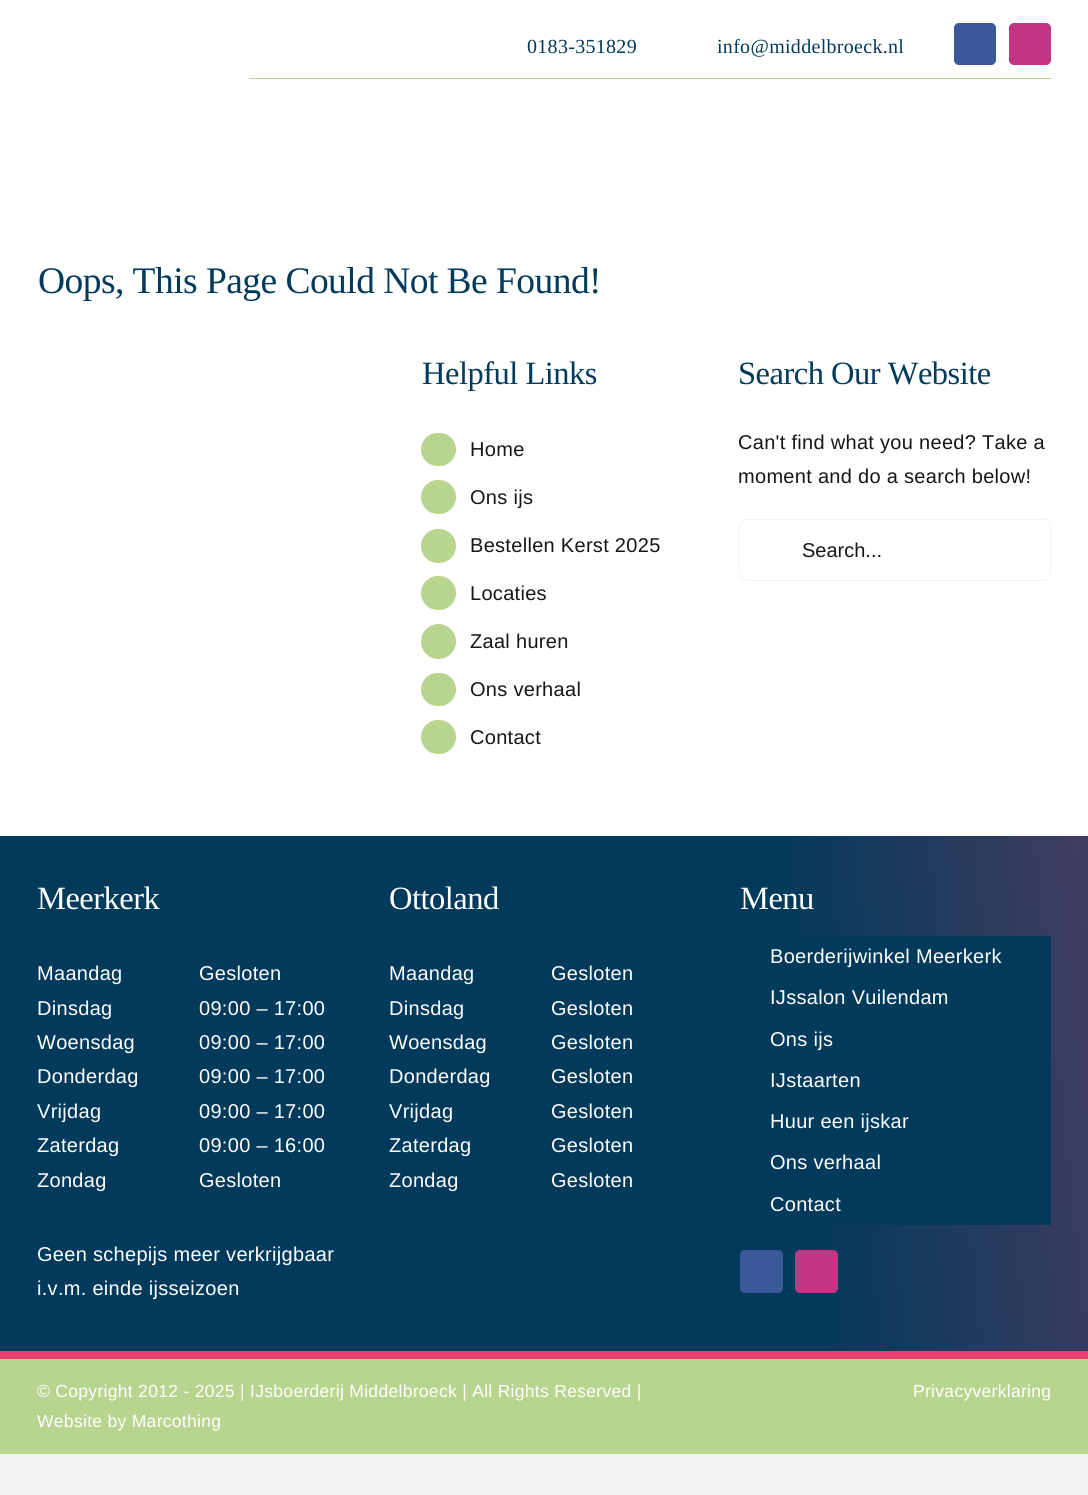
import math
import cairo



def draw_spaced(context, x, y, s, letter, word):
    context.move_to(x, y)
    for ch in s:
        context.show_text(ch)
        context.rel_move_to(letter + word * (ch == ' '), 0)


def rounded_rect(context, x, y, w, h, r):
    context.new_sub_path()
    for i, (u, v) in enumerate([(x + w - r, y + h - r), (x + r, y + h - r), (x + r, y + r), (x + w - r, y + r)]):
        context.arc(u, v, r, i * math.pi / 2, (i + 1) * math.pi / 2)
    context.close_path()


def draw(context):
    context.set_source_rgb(242 / 255, 243 / 255, 245 / 255)
    context.paint()
    context.set_source_rgb(1, 1, 1)
    context.rectangle(0, 0, 1088, 836)
    context.fill()
    context.set_source_rgb(183 / 255, 213 / 255, 143 / 255)
    context.rectangle(249, 78, 802, 1)
    context.fill()
    context.set_source_rgb(59 / 255, 89 / 255, 152 / 255)
    rounded_rect(context, 954.5, 23.5, 41, 41, 4.5)
    context.fill_preserve()
    context.set_line_width(1)
    context.stroke()
    context.set_source_rgb(193 / 255, 53 / 255, 132 / 255)
    rounded_rect(context, 1009.5, 23.5, 41, 41, 4.5)
    context.fill_preserve()
    context.stroke()
    context.set_source_rgb(183 / 255, 213 / 255, 143 / 255)
    rounded_rect(context, 421, 433, 35, 33, 16.5)
    context.fill()
    rounded_rect(context, 421, 480, 35, 34, 17)
    context.fill()
    rounded_rect(context, 421, 529, 35, 34, 17)
    context.fill()
    rounded_rect(context, 421, 576, 35, 34, 17)
    context.fill()
    context.arc(438.5, 641.5, 17.5, 0, 2 * math.pi)
    context.fill()
    rounded_rect(context, 421, 673, 35, 33, 16.5)
    context.fill()
    rounded_rect(context, 421, 720, 35, 34, 17)
    context.fill()
    rounded_rect(context, 739.5, 519.5, 311, 61, 7.5)
    context.set_source_rgb(242 / 255, 243 / 255, 245 / 255)
    context.stroke()
    gradient = cairo.LinearGradient(-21, 1153, 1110, 1034)
    gradient.add_color_stop_rgba(0.72, 2 / 255, 58 / 255, 91 / 255, 1)
    gradient.add_color_stop_rgba(1, 66 / 255, 60 / 255, 98 / 255, 1)
    context.set_source(gradient)
    context.rectangle(0, 836, 1088, 515)
    context.fill()
    context.set_source_rgb(2 / 255, 58 / 255, 91 / 255)
    context.rectangle(792, 936, 259, 289)
    context.fill()
    context.set_source_rgb(59 / 255, 89 / 255, 152 / 255)
    rounded_rect(context, 740.5, 1250.5, 42, 42, 4.5)
    context.fill_preserve()
    context.stroke()
    context.set_source_rgb(193 / 255, 53 / 255, 132 / 255)
    rounded_rect(context, 795.5, 1250.5, 42, 42, 4.5)
    context.fill_preserve()
    context.stroke()
    context.set_source_rgb(183 / 255, 213 / 255, 143 / 255)
    context.rectangle(0, 1359, 1088, 95)
    context.fill()
    context.set_source_rgb(232 / 255, 64 / 255, 113 / 255)
    context.rectangle(0, 1351, 1088, 8)
    context.fill()
    context.select_font_face("Liberation Serif")
    context.set_font_size(20)
    context.set_source_rgb(2 / 255, 58 / 255, 91 / 255)
    draw_spaced(context, 527, 53, "0183-351829", 0.3, 0)
    draw_spaced(context, 717, 53, "info@middelbroeck.nl", 0.3, 0)
    context.set_font_size(37.5)
    draw_spaced(context, 38, 293, "Oops, This Page Could Not Be Found!", -0.55, 0)
    context.set_font_size(32.5)
    draw_spaced(context, 422, 384, "Helpful Links", -0.5, 0)
    context.select_font_face("Liberation Sans")
    context.set_font_size(20)
    context.set_source_rgb(20 / 255, 22 / 255, 23 / 255)
    draw_spaced(context, 470, 456, "Home", 0.3, 0)
    draw_spaced(context, 470, 504, "Ons ijs", 0.3, 0)
    draw_spaced(context, 470, 552, "Bestellen Kerst 2025", 0.3, 0)
    draw_spaced(context, 470, 600, "Locaties", 0.3, 0)
    draw_spaced(context, 470, 648, "Zaal huren", 0.3, 0)
    draw_spaced(context, 470, 696, "Ons verhaal", 0.3, 0)
    draw_spaced(context, 470, 744, "Contact", 0.3, 0)
    context.select_font_face("Liberation Serif")
    context.set_font_size(32.5)
    context.set_source_rgb(2 / 255, 58 / 255, 91 / 255)
    draw_spaced(context, 738, 384, "Search Our Website", -0.5, 0)
    context.select_font_face("Liberation Sans")
    context.set_font_size(20)
    context.set_source_rgb(20 / 255, 22 / 255, 23 / 255)
    draw_spaced(context, 738, 449, "Can't find what you need? Take a", 0.3, 0)
    draw_spaced(context, 738, 483, "moment and do a search below!", 0.3, 0)
    context.move_to(802, 557)
    context.show_text("Search...")
    context.select_font_face("Liberation Serif")
    context.set_font_size(32.5)
    context.set_source_rgb(1, 1, 1)
    draw_spaced(context, 37, 909, "Meerkerk", -0.5, 0)
    context.select_font_face("Liberation Sans")
    context.set_font_size(20)
    draw_spaced(context, 37, 980, "Maandag", 0.3, 0)
    draw_spaced(context, 37, 1015, "Dinsdag", 0.3, 0)
    draw_spaced(context, 37, 1049, "Woensdag", 0.3, 0)
    draw_spaced(context, 37, 1083, "Donderdag", 0.3, 0)
    draw_spaced(context, 37, 1118, "Vrijdag", 0.3, 0)
    draw_spaced(context, 37, 1152, "Zaterdag", 0.3, 0)
    draw_spaced(context, 37, 1187, "Zondag", 0.3, 0)
    draw_spaced(context, 199, 980, "Gesloten", 0.3, 0)
    draw_spaced(context, 199, 1015, "09:00 – 17:00", 0.3, 0)
    draw_spaced(context, 199, 1049, "09:00 – 17:00", 0.3, 0)
    draw_spaced(context, 199, 1083, "09:00 – 17:00", 0.3, 0)
    draw_spaced(context, 199, 1118, "09:00 – 17:00", 0.3, 0)
    draw_spaced(context, 199, 1152, "09:00 – 16:00", 0.3, 0)
    draw_spaced(context, 199, 1187, "Gesloten", 0.3, 0)
    draw_spaced(context, 37, 1261, "Geen schepijs meer verkrijgbaar", 0.3, 0)
    draw_spaced(context, 37, 1295, "i.v.m. einde ijsseizoen", 0.3, 0)
    context.select_font_face("Liberation Serif")
    context.set_font_size(32.5)
    draw_spaced(context, 389, 909, "Ottoland", -0.5, 0)
    context.select_font_face("Liberation Sans")
    context.set_font_size(20)
    draw_spaced(context, 389, 980, "Maandag", 0.3, 0)
    draw_spaced(context, 389, 1015, "Dinsdag", 0.3, 0)
    draw_spaced(context, 389, 1049, "Woensdag", 0.3, 0)
    draw_spaced(context, 389, 1083, "Donderdag", 0.3, 0)
    draw_spaced(context, 389, 1118, "Vrijdag", 0.3, 0)
    draw_spaced(context, 389, 1152, "Zaterdag", 0.3, 0)
    draw_spaced(context, 389, 1187, "Zondag", 0.3, 0)
    draw_spaced(context, 551, 980, "Gesloten", 0.3, 0)
    draw_spaced(context, 551, 1015, "Gesloten", 0.3, 0)
    draw_spaced(context, 551, 1049, "Gesloten", 0.3, 0)
    draw_spaced(context, 551, 1083, "Gesloten", 0.3, 0)
    draw_spaced(context, 551, 1118, "Gesloten", 0.3, 0)
    draw_spaced(context, 551, 1152, "Gesloten", 0.3, 0)
    draw_spaced(context, 551, 1187, "Gesloten", 0.3, 0)
    context.select_font_face("Liberation Serif")
    context.set_font_size(32.5)
    draw_spaced(context, 740, 909, "Menu", -0.5, 0)
    context.select_font_face("Liberation Sans")
    context.set_font_size(20)
    draw_spaced(context, 770, 963, "Boerderijwinkel Meerkerk", 0.3, 0)
    draw_spaced(context, 770, 1004, "IJssalon Vuilendam", 0.3, 0)
    draw_spaced(context, 770, 1046, "Ons ijs", 0.3, 0)
    draw_spaced(context, 770, 1087, "IJstaarten", 0.3, 0)
    draw_spaced(context, 770, 1128, "Huur een ijskar", 0.3, 0)
    draw_spaced(context, 770, 1169, "Ons verhaal", 0.3, 0)
    draw_spaced(context, 770, 1211, "Contact", 0.3, 0)
    context.set_font_size(17.5)
    draw_spaced(context, 37, 1397, "© Copyright 2012 - 2025 | IJsboerderij Middelbroeck | All Rights Reserved |", 0.3, 0)
    draw_spaced(context, 37, 1427, "Website by Marcothing", 0.3, 0)
    draw_spaced(context, 913, 1397, "Privacyverklaring", 0.3, 0)


surface = cairo.ImageSurface(cairo.Format.RGB24, 1088, 1495)
context = cairo.Context(surface)
options = cairo.FontOptions()
options.set_hint_metrics(cairo.HintMetrics.OFF)
options.set_hint_style(cairo.HintStyle.NONE)
context.set_font_options(options)
context.set_miter_limit(4)
draw(context)
surface.write_to_png("out.png")
